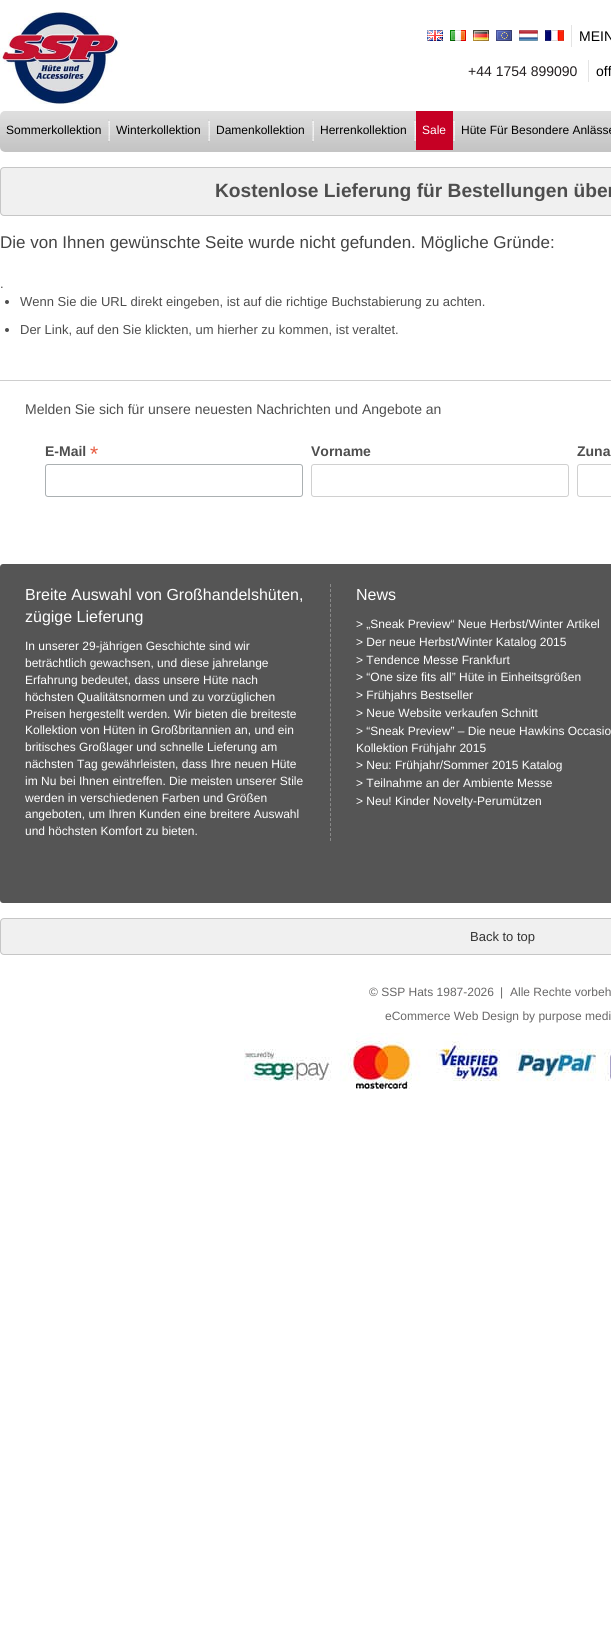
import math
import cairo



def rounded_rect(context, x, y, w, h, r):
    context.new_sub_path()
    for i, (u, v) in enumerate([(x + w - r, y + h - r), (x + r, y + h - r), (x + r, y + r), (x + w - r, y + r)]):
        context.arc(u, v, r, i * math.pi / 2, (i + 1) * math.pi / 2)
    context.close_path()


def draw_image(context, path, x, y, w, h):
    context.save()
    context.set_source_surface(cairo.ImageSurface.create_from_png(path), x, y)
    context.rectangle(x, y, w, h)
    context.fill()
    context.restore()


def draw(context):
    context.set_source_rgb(1, 1, 1)
    context.paint()
    draw_image(context, "images/1.png", 0, 10, 120, 94)
    draw_image(context, "images/2.png", 427, 30, 16, 11)
    draw_image(context, "images/3.png", 450, 30, 16, 11)
    draw_image(context, "images/4.png", 473, 30, 16, 11)
    draw_image(context, "images/5.png", 496, 30, 16, 11)
    draw_image(context, "images/6.png", 519, 30, 19, 11)
    draw_image(context, "images/7.png", 545, 30, 19, 11)
    context.set_source_rgb(228 / 255, 228 / 255, 228 / 255)
    context.rectangle(571, 25, 1, 22)
    context.fill()
    context.rectangle(588, 60, 1, 22)
    context.fill()
    draw_image(context, "images/8.png", 0, 111, 611, 41)
    draw_image(context, "images/9.png", 108, 119, 2, 24)
    draw_image(context, "images/9.png", 208, 119, 2, 24)
    draw_image(context, "images/9.png", 312, 119, 2, 24)
    draw_image(context, "images/9.png", 414, 119, 2, 24)
    context.set_source_rgb(198 / 255, 0, 36 / 255)
    context.rectangle(416, 111, 37, 39)
    context.fill()
    draw_image(context, "images/9.png", 453, 119, 2, 24)
    context.set_source_rgb(240 / 255, 240 / 255, 240 / 255)
    rounded_rect(context, 0.5, 167.5, 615, 48, 3.5)
    context.fill_preserve()
    context.set_source_rgb(198 / 255, 198 / 255, 198 / 255)
    context.set_line_width(1)
    context.stroke()
    context.set_source_rgb(78 / 255, 78 / 255, 78 / 255)
    context.arc(7, 302, 2, 0, 2 * math.pi)
    context.fill()
    context.arc(7, 330, 2, 0, 2 * math.pi)
    context.fill()
    context.set_source_rgb(206 / 255, 206 / 255, 206 / 255)
    context.rectangle(0, 380, 611, 1)
    context.fill()
    rounded_rect(context, 45.5, 464.5, 257, 32, 2.5)
    context.set_source_rgb(171 / 255, 176 / 255, 178 / 255)
    context.stroke()
    rounded_rect(context, 311.5, 464.5, 257, 32, 2.5)
    context.set_source_rgb(208 / 255, 208 / 255, 208 / 255)
    context.stroke()
    rounded_rect(context, 577.5, 464.5, 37, 32, 2.5)
    context.stroke()
    context.set_source_rgb(85 / 255, 85 / 255, 85 / 255)
    rounded_rect(context, 0, 564, 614, 339, 3)
    context.fill()
    context.new_path()
    context.move_to(330.5, 584)
    context.line_to(330.5, 841)
    context.set_source_rgb(137 / 255, 137 / 255, 137 / 255)
    context.set_dash([3, 1.98])
    context.stroke()
    context.set_source_rgb(240 / 255, 240 / 255, 240 / 255)
    rounded_rect(context, 0.5, 918.5, 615, 36, 3.5)
    context.fill_preserve()
    context.set_source_rgb(198 / 255, 198 / 255, 198 / 255)
    context.set_dash([])
    context.stroke()
    draw_image(context, "images/10.png", 244, 1033, 367, 56)
    context.select_font_face("Liberation Sans")
    context.set_font_size(14)
    context.set_source_rgb(0, 0, 0)
    context.move_to(579, 41)
    context.show_text("MEIN")
    context.set_source_rgb(35 / 255, 31 / 255, 32 / 255)
    context.move_to(468, 76)
    context.show_text("+44 1754 899090")
    context.set_source_rgb(0, 0, 0)
    context.move_to(596, 76)
    context.show_text("off")
    context.set_font_size(12)
    context.move_to(6, 134)
    context.show_text("Sommerkollektion")
    context.move_to(116, 134)
    context.show_text("Winterkollektion")
    context.move_to(216, 134)
    context.show_text("Damenkollektion")
    context.move_to(320, 134)
    context.show_text("Herrenkollektion")
    context.set_source_rgb(1, 1, 1)
    context.move_to(422, 134)
    context.show_text("Sale")
    context.set_source_rgb(0, 0, 0)
    context.move_to(461, 134)
    context.show_text("Hüte Für Besondere Anlässe")
    context.select_font_face("Liberation Sans", cairo.FontSlant.NORMAL, cairo.FontWeight.BOLD)
    context.set_font_size(19.2)
    context.set_source_rgb(78 / 255, 78 / 255, 78 / 255)
    context.move_to(215, 197)
    context.show_text("Kostenlose Lieferung für Bestellungen über")
    context.select_font_face("Liberation Sans")
    context.set_font_size(17)
    context.set_source_rgb(68 / 255, 68 / 255, 68 / 255)
    context.move_to(0, 248)
    context.show_text("Die von Ihnen gewünschte Seite wurde nicht gefunden. Mögliche Gründe:")
    context.set_font_size(13)
    context.set_source_rgb(78 / 255, 78 / 255, 78 / 255)
    context.move_to(0, 288)
    context.show_text(".")
    context.move_to(20, 306)
    context.show_text("Wenn Sie die URL direkt eingeben, ist auf die richtige Buchstabierung zu achten.")
    context.move_to(20, 334)
    context.show_text("Der Link, auf den Sie klickten, um hierher zu kommen, ist veraltet.")
    context.set_font_size(14)
    context.move_to(25, 414)
    context.show_text("Melden Sie sich für unsere neuesten Nachrichten und Angebote an")
    context.select_font_face("Liberation Sans", cairo.FontSlant.NORMAL, cairo.FontWeight.BOLD)
    context.move_to(45, 456)
    context.show_text("E-Mail")
    context.select_font_face("Liberation Sans")
    context.set_font_size(21)
    context.set_source_rgb(232 / 255, 92 / 255, 65 / 255)
    context.move_to(90, 461)
    context.show_text("*")
    context.select_font_face("Liberation Sans", cairo.FontSlant.NORMAL, cairo.FontWeight.BOLD)
    context.set_font_size(14)
    context.set_source_rgb(78 / 255, 78 / 255, 78 / 255)
    context.move_to(311, 456)
    context.show_text("Vorname")
    context.move_to(577, 456)
    context.show_text("Zuna")
    context.select_font_face("Liberation Sans")
    context.set_font_size(16)
    context.set_source_rgb(1, 1, 1)
    context.move_to(25, 600)
    context.show_text("Breite Auswahl von Großhandelshüten,")
    context.move_to(25, 622)
    context.show_text("zügige Lieferung")
    context.set_font_size(12)
    context.move_to(25, 650)
    context.show_text("In unserer 29-jährigen Geschichte sind wir")
    context.move_to(25, 667)
    context.show_text("beträchtlich gewachsen, und diese jahrelange")
    context.move_to(25, 684)
    context.show_text("Erfahrung bedeutet, dass unsere Hüte nach")
    context.move_to(25, 701)
    context.show_text("höchsten Qualitätsnormen und zu vorzüglichen")
    context.move_to(25, 718)
    context.show_text("Preisen hergestellt werden. Wir bieten die breiteste")
    context.move_to(25, 734)
    context.show_text("Kollektion von Hüten in Großbritannien an, und ein")
    context.move_to(25, 751)
    context.show_text("britisches Großlager und schnelle Lieferung am")
    context.move_to(25, 768)
    context.show_text("nächsten Tag gewährleisten, dass Ihre neuen Hüte")
    context.move_to(25, 785)
    context.show_text("im Nu bei Ihnen eintreffen. Die meisten unserer Stile")
    context.move_to(25, 802)
    context.show_text("werden in verschiedenen Farben und Größen")
    context.move_to(25, 818)
    context.show_text("angeboten, um Ihren Kunden eine breitere Auswahl")
    context.move_to(25, 835)
    context.show_text("und höchsten Komfort zu bieten.")
    context.set_font_size(16)
    context.move_to(356, 600)
    context.show_text("News")
    context.set_font_size(12)
    context.move_to(356, 628)
    context.show_text("> „Sneak Preview“ Neue Herbst/Winter Artikel")
    context.move_to(356, 646)
    context.show_text("> Der neue Herbst/Winter Katalog 2015")
    context.move_to(356, 664)
    context.show_text("> Tendence Messe Frankfurt")
    context.move_to(356, 681)
    context.show_text("> “One size fits all” Hüte in Einheitsgrößen")
    context.move_to(356, 699)
    context.show_text("> Frühjahrs Bestseller")
    context.move_to(356, 717)
    context.show_text("> Neue Website verkaufen Schnitt")
    context.move_to(356, 735)
    context.show_text("> “Sneak Preview” – Die neue Hawkins Occasio")
    context.move_to(356, 752)
    context.show_text("Kollektion Frühjahr 2015")
    context.move_to(356, 769)
    context.show_text("> Neu: Frühjahr/Sommer 2015 Katalog")
    context.move_to(356, 787)
    context.show_text("> Teilnahme an der Ambiente Messe")
    context.move_to(356, 805)
    context.show_text("> Neu! Kinder Novelty-Perumützen")
    context.set_font_size(13)
    context.set_source_rgb(51 / 255, 51 / 255, 51 / 255)
    context.move_to(470, 941)
    context.show_text("Back to top")
    context.set_font_size(12)
    context.set_source_rgb(104 / 255, 103 / 255, 103 / 255)
    context.move_to(369, 996)
    context.show_text("© SSP Hats 1987-2026")
    context.move_to(500, 996)
    context.show_text("|")
    context.move_to(510, 996)
    context.show_text("Alle Rechte vorbeh")
    context.move_to(385, 1020)
    context.show_text("eCommerce Web Design by purpose medi")


surface = cairo.ImageSurface(cairo.Format.RGB24, 611, 1647)
context = cairo.Context(surface)
options = cairo.FontOptions()
options.set_hint_metrics(cairo.HintMetrics.OFF)
options.set_hint_style(cairo.HintStyle.NONE)
context.set_font_options(options)
context.set_miter_limit(4)
draw(context)
surface.write_to_png("out.png")
